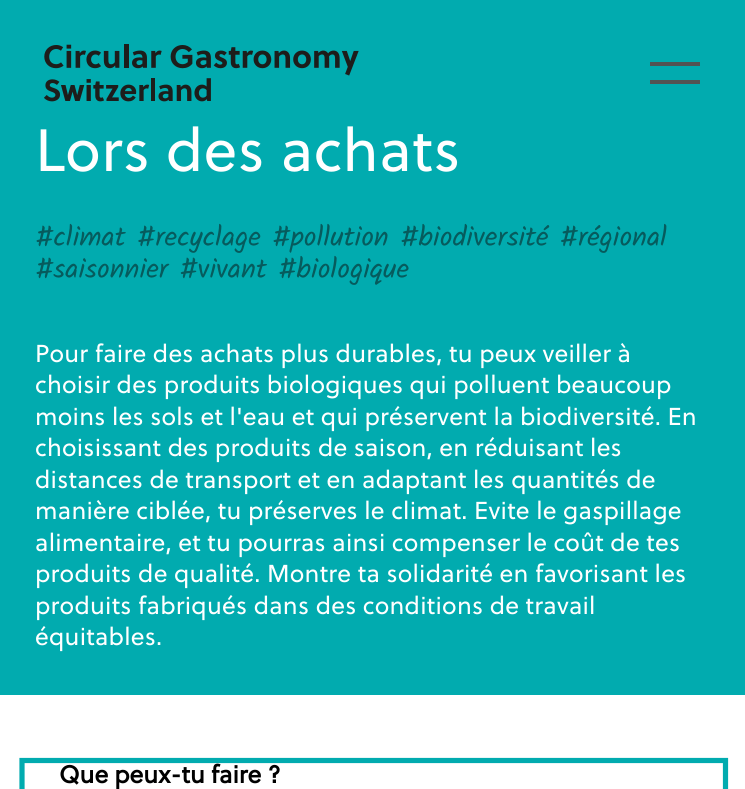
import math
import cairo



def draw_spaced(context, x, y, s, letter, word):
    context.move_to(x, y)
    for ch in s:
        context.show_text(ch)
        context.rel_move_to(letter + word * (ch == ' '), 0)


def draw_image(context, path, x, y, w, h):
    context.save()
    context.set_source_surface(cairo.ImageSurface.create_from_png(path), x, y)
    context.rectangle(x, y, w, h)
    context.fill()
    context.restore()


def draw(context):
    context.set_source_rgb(1, 1, 1)
    context.paint()
    context.set_source_rgb(1 / 255, 171 / 255, 175 / 255)
    context.rectangle(0, 0, 745, 695)
    context.fill()
    draw_image(context, "images/1.png", 44, 44, 315, 58)
    context.set_source_rgb(83 / 255, 83 / 255, 83 / 255)
    context.rectangle(650, 62, 50, 4)
    context.fill()
    context.rectangle(650, 80, 50, 4)
    context.fill()
    context.new_path()
    context.move_to(22, 760.5)
    context.line_to(725.5, 760.5)
    context.line_to(725.5, 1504)
    context.line_to(22, 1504)
    context.close_path()
    context.set_source_rgb(1 / 255, 171 / 255, 175 / 255)
    context.set_line_width(5.2)
    context.stroke()
    context.select_font_face("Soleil")
    context.set_font_size(59.5)
    context.set_source_rgb(1, 1, 1)
    draw_spaced(context, 35, 171, "Lors des achats", 0.6, 0)
    context.select_font_face("Kalam")
    context.set_font_size(28)
    context.set_source_rgb(6 / 255, 91 / 255, 93 / 255)
    context.move_to(35, 246)
    context.show_text("#climat #recyclage #pollution #biodiversité #régional")
    context.move_to(35, 278)
    context.show_text("#saisonnier #vivant #biologique")
    context.select_font_face("Soleil")
    context.set_font_size(24.5)
    context.set_source_rgb(1, 1, 1)
    draw_spaced(context, 35, 362, "Pour faire des achats plus durables, tu peux veiller à", 0.25, 0)
    draw_spaced(context, 35, 393, "choisir des produits biologiques qui polluent beaucoup", 0.25, 0)
    draw_spaced(context, 35, 425, "moins les sols et l'eau et qui préservent la biodiversité. En", 0.25, 0)
    draw_spaced(context, 35, 456, "choisissant des produits de saison, en réduisant les", 0.25, 0)
    draw_spaced(context, 35, 488, "distances de transport et en adaptant les quantités de", 0.25, 0)
    draw_spaced(context, 35, 519, "manière ciblée, tu préserves le climat. Evite le gaspillage", 0.25, 0)
    draw_spaced(context, 35, 551, "alimentaire, et tu pourras ainsi compenser le coût de tes", 0.25, 0)
    draw_spaced(context, 35, 582, "produits de qualité. Montre ta solidarité en favorisant les", 0.25, 0)
    draw_spaced(context, 35, 614, "produits fabriqués dans des conditions de travail", 0.25, 0)
    draw_spaced(context, 35, 645, "équitables.", 0.25, 0)
    context.select_font_face("Soleil", cairo.FontSlant.NORMAL, cairo.FontWeight.BOLD)
    context.set_source_rgb(0, 0, 0)
    context.move_to(59, 783)
    context.show_text("Que peux-tu faire ?")


surface = cairo.ImageSurface(cairo.Format.RGB24, 745, 789)
context = cairo.Context(surface)
options = cairo.FontOptions()
options.set_hint_metrics(cairo.HintMetrics.OFF)
options.set_hint_style(cairo.HintStyle.NONE)
context.set_font_options(options)
context.set_miter_limit(4)
draw(context)
surface.write_to_png("out.png")
